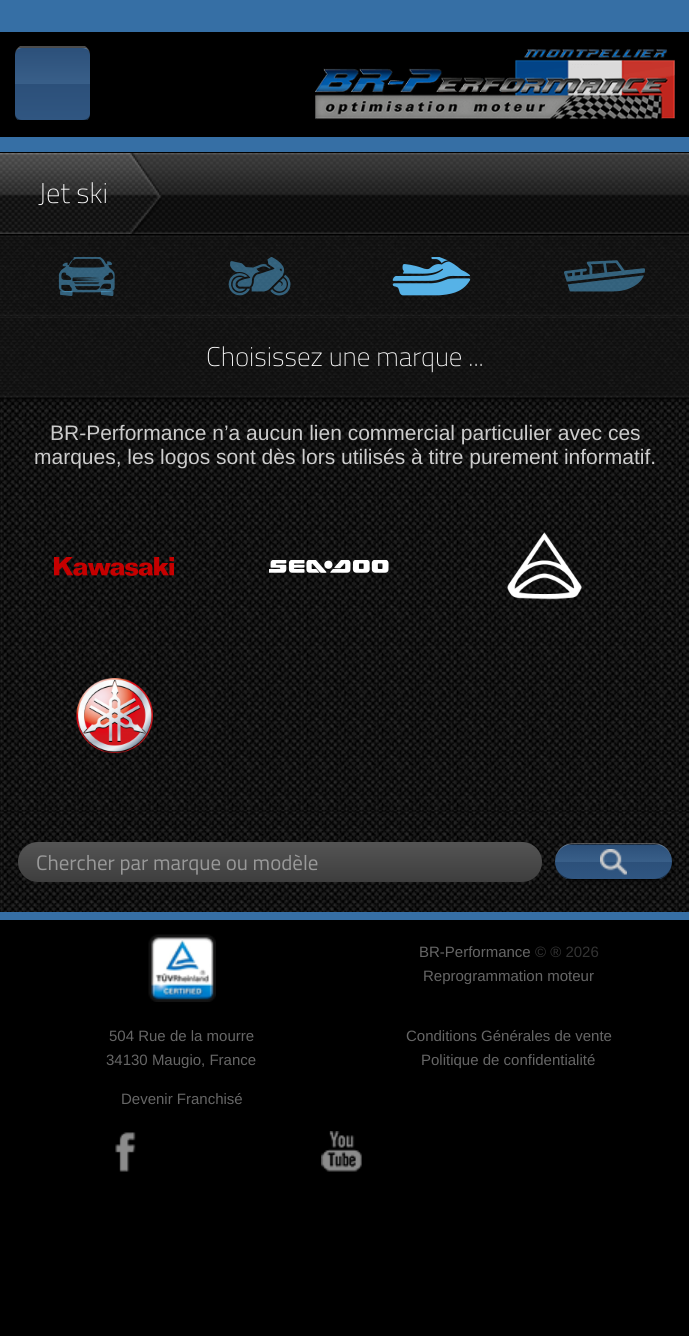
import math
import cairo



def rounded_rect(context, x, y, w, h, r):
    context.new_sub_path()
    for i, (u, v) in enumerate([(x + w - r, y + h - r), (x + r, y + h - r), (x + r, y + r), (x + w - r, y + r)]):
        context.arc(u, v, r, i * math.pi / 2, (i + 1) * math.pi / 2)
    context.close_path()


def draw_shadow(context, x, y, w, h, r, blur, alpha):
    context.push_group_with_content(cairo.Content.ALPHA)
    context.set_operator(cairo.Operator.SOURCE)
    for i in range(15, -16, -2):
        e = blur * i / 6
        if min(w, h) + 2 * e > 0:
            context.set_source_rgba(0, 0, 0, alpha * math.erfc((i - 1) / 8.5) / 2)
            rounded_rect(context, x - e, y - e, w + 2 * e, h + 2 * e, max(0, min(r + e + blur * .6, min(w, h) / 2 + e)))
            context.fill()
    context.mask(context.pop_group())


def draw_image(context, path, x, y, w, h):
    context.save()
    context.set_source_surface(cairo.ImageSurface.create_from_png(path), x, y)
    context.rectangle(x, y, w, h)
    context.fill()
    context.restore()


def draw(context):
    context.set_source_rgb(0, 0, 0)
    context.paint()
    context.set_source_rgb(54 / 255, 111 / 255, 165 / 255)
    context.rectangle(0, 0, 689, 32)
    context.fill()
    context.save()
    rounded_rect(context, 15, 47, 75, 75, 8)
    context.clip()
    gradient = cairo.LinearGradient(53, 48, 53, 120)
    gradient.add_color_stop_rgba(0, 44 / 255, 80 / 255, 122 / 255, 1)
    gradient.add_color_stop_rgba(0.5, 57 / 255, 95 / 255, 137 / 255, 1)
    gradient.add_color_stop_rgba(0.5, 44 / 255, 80 / 255, 122 / 255, 1)
    gradient.add_color_stop_rgba(1, 48 / 255, 86 / 255, 129 / 255, 1)
    context.set_source(gradient)
    context.rectangle(15, 48, 75, 72)
    context.fill()
    context.restore()
    context.set_source_rgba(1, 1, 1, 0.3)
    context.new_path()
    context.move_to(22, 48)
    context.curve_to(18, 48, 15, 51, 15, 54)
    context.curve_to(15, 51, 17, 48, 20, 46)
    context.line_to(85, 46)
    context.curve_to(88, 48, 90, 51, 90, 54)
    context.curve_to(90, 51, 87, 48, 82, 48)
    context.close_path()
    context.fill()
    context.set_source_rgba(0, 0, 0, 0.5)
    context.new_path()
    context.move_to(85, 122)
    context.curve_to(88, 120, 90, 117, 90, 114)
    context.curve_to(90, 117, 87, 120, 82, 120)
    context.line_to(22, 120)
    context.curve_to(18, 120, 15, 117, 15, 114)
    context.curve_to(15, 117, 17, 120, 20, 122)
    context.close_path()
    context.fill()
    draw_image(context, "images/1.png", 315, 49, 360, 71)
    context.set_source_rgb(54 / 255, 111 / 255, 165 / 255)
    context.rectangle(0, 137, 689, 15)
    context.fill()
    draw_image(context, "images/2.png", 128, 153, 561, 81)
    draw_image(context, "images/3.png", 0, 153, 161, 81)
    draw_image(context, "images/4.png", 0, 235, 689, 82)
    draw_image(context, "images/5.png", 58, 257, 57, 39)
    draw_image(context, "images/6.png", 228, 257, 63, 39)
    draw_image(context, "images/7.png", 392, 257, 79, 39)
    draw_image(context, "images/8.png", 564, 260, 81, 32)
    draw_image(context, "images/10.png", 0, 397, 689, 415)
    context.set_source_rgb(0, 0, 0)
    draw_shadow(context, 0, 318, 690, 81, 0, 1.5, 1)
    draw_image(context, "images/9.png", 0, 316, 689, 82)
    draw_image(context, "images/11.png", 54, 557, 120, 19)
    draw_image(context, "images/12.png", 269, 560, 120, 13)
    draw_image(context, "images/13.png", 507, 532, 75, 68)
    draw_image(context, "images/14.png", 76, 678, 77, 75)
    draw_image(context, "images/15.png", 0, 811, 689, 101)
    gradient = cairo.LinearGradient(18, 842, 18, 882)
    gradient.add_color_stop_rgba(0, 84 / 255, 84 / 255, 84 / 255, 1)
    gradient.add_color_stop_rgba(1, 62 / 255, 62 / 255, 62 / 255, 1)
    context.set_source(gradient)
    rounded_rect(context, 18, 842, 524, 40, 20)
    context.fill()
    context.set_source_rgb(0, 0, 0)
    draw_shadow(context, 557, 845, 117, 37, 18.5, 2, 0.5)
    draw_image(context, "images/16.png", 555, 844, 117, 35)
    context.set_source_rgba(1, 1, 1, 0.3)
    context.new_path()
    context.move_to(574, 843)
    context.curve_to(563, 843, 555, 851, 555, 862)
    context.curve_to(555, 852, 563, 844, 574, 844)
    context.line_to(653, 844)
    context.curve_to(664, 844, 672, 852, 672, 862)
    context.curve_to(672, 851, 664, 843, 653, 843)
    context.close_path()
    context.fill()
    context.set_source_rgba(0, 0, 0, 0.5)
    context.new_path()
    context.move_to(672, 862)
    context.curve_to(672, 872, 664, 880, 653, 880)
    context.line_to(574, 880)
    context.curve_to(563, 880, 555, 872, 555, 862)
    context.curve_to(555, 871, 563, 879, 574, 879)
    context.line_to(653, 879)
    context.curve_to(664, 879, 672, 871, 672, 862)
    context.close_path()
    context.fill()
    context.set_source_rgb(54 / 255, 111 / 255, 165 / 255)
    context.rectangle(0, 912, 689, 8)
    context.fill()
    draw_image(context, "images/17.png", 148, 934, 68, 68)
    draw_image(context, "images/18.png", 115, 1132, 21, 40)
    draw_image(context, "images/19.png", 321, 1131, 41, 41)
    context.select_font_face("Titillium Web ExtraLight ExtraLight")
    context.set_font_size(28.5)
    context.set_source_rgb(1, 1, 1)
    context.move_to(38, 203)
    context.show_text("Jet ski")
    context.set_font_size(27)
    context.move_to(206, 366)
    context.show_text("Choisissez une marque ...")
    context.select_font_face("Liberation Sans")
    context.set_font_size(21)
    context.set_source_rgb(204 / 255, 204 / 255, 204 / 255)
    context.move_to(50, 440)
    context.show_text("BR-Performance n’a aucun lien commercial particulier avec ces")
    context.move_to(34, 464)
    context.show_text("marques, les logos sont dès lors utilisés à titre purement informatif.")
    context.select_font_face("Titillium Web")
    context.set_source_rgb(153 / 255, 153 / 255, 153 / 255)
    context.move_to(36, 870)
    context.show_text("Chercher par marque ou modèle")
    context.select_font_face("Liberation Sans")
    context.set_font_size(15)
    context.set_source_rgb(102 / 255, 102 / 255, 102 / 255)
    context.move_to(419, 957)
    context.show_text("BR-Performance")
    context.set_source_rgb(51 / 255, 51 / 255, 51 / 255)
    context.move_to(535, 957)
    context.show_text("© ® 2026")
    context.set_source_rgb(102 / 255, 102 / 255, 102 / 255)
    context.move_to(423, 981)
    context.show_text("Reprogrammation moteur")
    context.move_to(109, 1041)
    context.show_text("504 Rue de la mourre")
    context.move_to(106, 1065)
    context.show_text("34130 Maugio, France")
    context.move_to(406, 1041)
    context.show_text("Conditions Générales de vente")
    context.move_to(421, 1065)
    context.show_text("Politique de confidentialité")
    context.move_to(121, 1104)
    context.show_text("Devenir Franchisé")


surface = cairo.ImageSurface(cairo.Format.RGB24, 689, 1336)
context = cairo.Context(surface)
options = cairo.FontOptions()
options.set_hint_metrics(cairo.HintMetrics.OFF)
options.set_hint_style(cairo.HintStyle.NONE)
context.set_font_options(options)
context.set_miter_limit(4)
draw(context)
surface.write_to_png("out.png")
